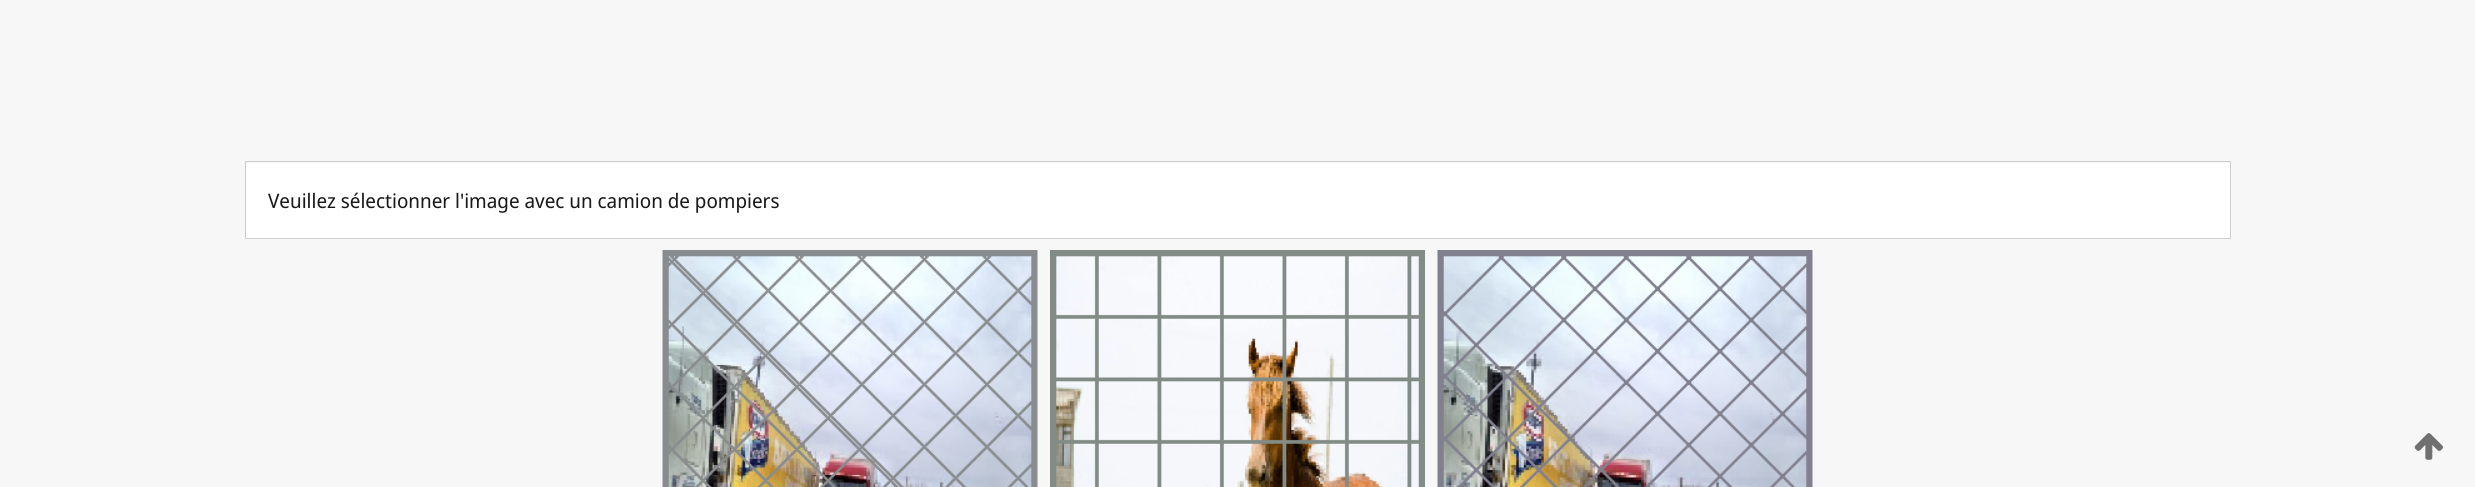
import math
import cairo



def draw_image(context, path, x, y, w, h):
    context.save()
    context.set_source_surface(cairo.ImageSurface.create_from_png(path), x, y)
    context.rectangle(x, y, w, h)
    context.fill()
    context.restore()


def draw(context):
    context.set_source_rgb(247 / 255, 247 / 255, 247 / 255)
    context.paint()
    context.set_source_rgb(1, 1, 1)
    context.rectangle(246, 163, 1984, 75)
    context.fill()
    context.rectangle(245.5, 161.5, 1985, 77)
    context.set_source_rgb(204 / 255, 204 / 255, 204 / 255)
    context.set_line_width(1)
    context.stroke()
    draw_image(context, "images/1.png", 662, 250, 376, 237)
    draw_image(context, "images/2.png", 1050, 250, 375, 237)
    draw_image(context, "images/3.png", 1437, 250, 376, 237)
    draw_image(context, "images/4.png", 2414, 433, 29, 27)
    context.select_font_face("Noto Sans Display")
    context.set_font_size(20)
    context.set_source_rgb(26 / 255, 26 / 255, 26 / 255)
    context.move_to(268, 208)
    context.show_text("Veuillez sélectionner l'image avec un camion de pompiers")


surface = cairo.ImageSurface(cairo.Format.RGB24, 2475, 487)
context = cairo.Context(surface)
options = cairo.FontOptions()
options.set_hint_metrics(cairo.HintMetrics.OFF)
options.set_hint_style(cairo.HintStyle.NONE)
context.set_font_options(options)
context.set_miter_limit(4)
draw(context)
surface.write_to_png("out.png")
